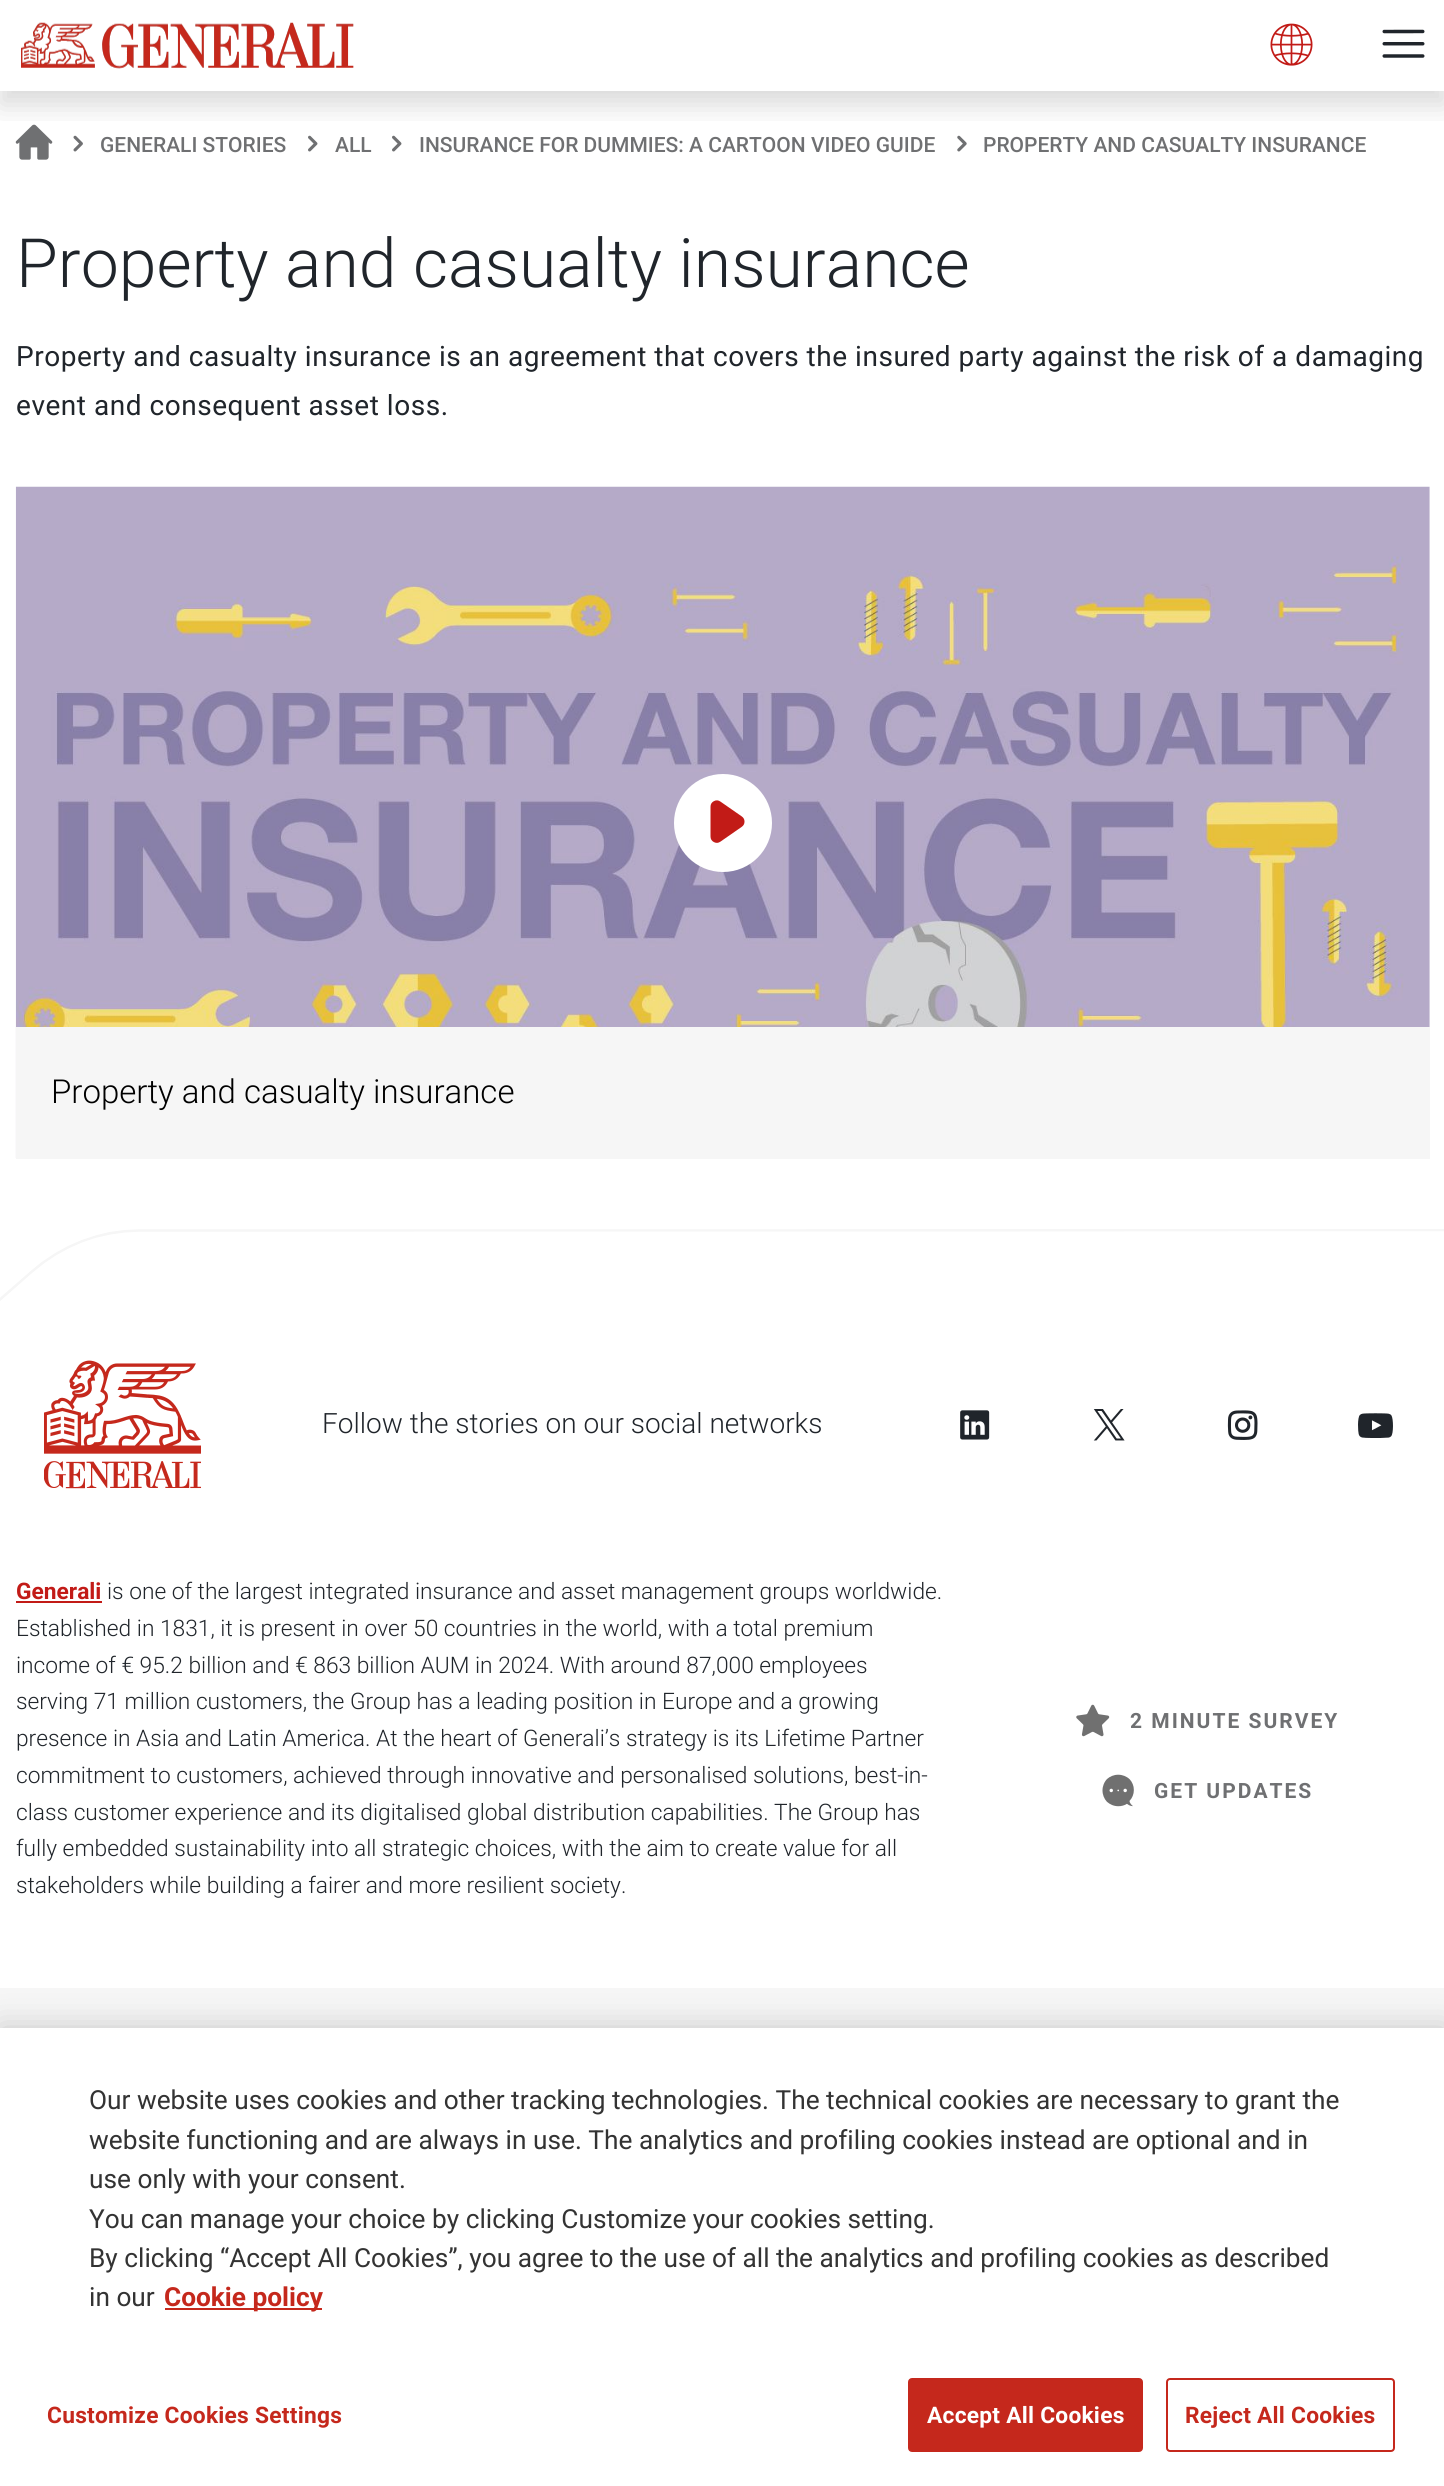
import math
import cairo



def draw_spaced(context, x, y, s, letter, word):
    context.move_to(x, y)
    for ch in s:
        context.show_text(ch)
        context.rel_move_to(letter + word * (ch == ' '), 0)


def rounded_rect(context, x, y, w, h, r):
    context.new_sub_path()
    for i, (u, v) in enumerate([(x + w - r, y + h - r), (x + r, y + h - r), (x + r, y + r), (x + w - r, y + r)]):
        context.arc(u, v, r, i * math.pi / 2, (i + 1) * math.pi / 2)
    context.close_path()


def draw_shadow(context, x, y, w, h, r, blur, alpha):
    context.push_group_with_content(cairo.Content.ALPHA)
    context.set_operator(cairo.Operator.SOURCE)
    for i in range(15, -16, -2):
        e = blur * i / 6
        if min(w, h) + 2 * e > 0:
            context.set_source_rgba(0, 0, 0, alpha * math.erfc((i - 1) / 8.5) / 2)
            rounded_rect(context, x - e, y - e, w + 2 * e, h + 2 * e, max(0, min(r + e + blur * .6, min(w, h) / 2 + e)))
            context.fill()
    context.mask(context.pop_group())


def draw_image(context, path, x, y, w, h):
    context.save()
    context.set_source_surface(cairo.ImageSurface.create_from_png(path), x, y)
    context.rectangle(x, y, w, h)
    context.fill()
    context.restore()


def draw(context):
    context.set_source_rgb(1, 1, 1)
    context.paint()
    draw_image(context, "images/4.png", 15, 124, 38, 36)
    draw_image(context, "images/5.png", 73, 135, 10, 17)
    draw_image(context, "images/6.png", 308, 135, 10, 17)
    draw_image(context, "images/6.png", 392, 135, 10, 17)
    draw_image(context, "images/7.png", 957, 135, 10, 17)
    context.save()
    context.rectangle(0, 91, 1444, 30)
    context.clip()
    context.set_source_rgb(0, 0, 0)
    draw_shadow(context, 0, 14, 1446, 91, 0, 14, 0.15)
    context.restore()
    draw_image(context, "images/1.png", 21, 22, 333, 47)
    draw_image(context, "images/2.png", 1270, 23, 43, 43)
    draw_image(context, "images/3.png", 1382, 29, 43, 29)
    draw_image(context, "images/9.png", 15, 486, 1415, 672)
    context.set_source_rgb(1, 1, 1)
    context.arc(723, 823, 49, 0, 2 * math.pi)
    context.fill()
    draw_image(context, "images/8.png", 710, 800, 35, 43)
    context.set_source_rgb(246 / 255, 246 / 255, 246 / 255)
    context.rectangle(16, 1027, 1414, 132)
    context.fill()
    draw_image(context, "images/10.png", 0, 1229, 1444, 72)
    draw_image(context, "images/11.png", 44, 1360, 157, 129)
    draw_image(context, "images/12.png", 960, 1410, 30, 30)
    draw_image(context, "images/13.png", 1093, 1409, 32, 32)
    draw_image(context, "images/14.png", 1227, 1410, 31, 30)
    draw_image(context, "images/15.png", 1358, 1413, 35, 25)
    context.set_source_rgb(194 / 255, 27 / 255, 23 / 255)
    context.rectangle(16, 1601, 86, 2)
    context.fill()
    draw_image(context, "images/16.png", 1076, 1704, 34, 33)
    draw_image(context, "images/17.png", 1102, 1774, 32, 33)
    context.set_source_rgb(246 / 255, 246 / 255, 246 / 255)
    context.rectangle(0, 1988, 1444, 40)
    context.fill()
    context.set_source_rgb(0, 0, 0)
    draw_shadow(context, 0, 2028, 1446, 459, 0, 16, 0.2)
    context.set_source_rgb(1, 1, 1)
    context.rectangle(0, 2028, 1444, 458)
    context.fill()
    context.set_source_rgb(197 / 255, 40 / 255, 28 / 255)
    context.rectangle(165, 2308, 157, 2)
    context.fill()
    rounded_rect(context, 909, 2379, 233, 72, 3)
    context.fill_preserve()
    context.stroke()
    rounded_rect(context, 1167, 2379, 227, 72, 3)
    context.stroke()
    context.select_font_face("Roboto Medium")
    context.set_font_size(21)
    context.set_source_rgb(111 / 255, 112 / 255, 114 / 255)
    context.move_to(100, 152)
    context.show_text("GENERALI STORIES")
    context.move_to(335, 152)
    context.show_text("ALL")
    context.move_to(419, 152)
    context.show_text("INSURANCE FOR DUMMIES: A CARTOON VIDEO GUIDE")
    context.move_to(983, 152)
    context.show_text("PROPERTY AND CASUALTY INSURANCE")
    context.select_font_face("Roboto Light")
    context.set_font_size(67.9)
    context.set_source_rgb(32 / 255, 37 / 255, 43 / 255)
    context.move_to(16, 287)
    context.show_text("Property and casualty insurance")
    context.select_font_face("Roboto")
    context.set_font_size(28)
    draw_spaced(context, 16, 366, "Property and casualty insurance is an agreement that covers the insured party against the risk of a damaging", 0.53, 0)
    draw_spaced(context, 16, 415, "event and consequent asset loss.", 0.53, 0)
    context.select_font_face("Roboto Light")
    context.set_font_size(33)
    context.set_source_rgb(0, 0, 0)
    context.move_to(51, 1103)
    context.show_text("Property and casualty insurance")
    context.set_font_size(28)
    context.set_source_rgb(32 / 255, 37 / 255, 43 / 255)
    context.move_to(322, 1433)
    context.show_text("Follow the stories on our social networks")
    context.select_font_face("Roboto", cairo.FontSlant.NORMAL, cairo.FontWeight.BOLD)
    context.set_font_size(22.75)
    context.set_source_rgb(194 / 255, 27 / 255, 23 / 255)
    context.move_to(16, 1599)
    context.show_text("Generali")
    context.select_font_face("Roboto Light")
    context.set_source_rgb(32 / 255, 37 / 255, 43 / 255)
    context.move_to(107, 1599)
    context.show_text("is one of the largest integrated insurance and asset management groups worldwide.")
    context.move_to(16, 1636)
    context.show_text("Established in 1831, it is present in over 50 countries in the world, with a total premium")
    context.move_to(16, 1673)
    context.show_text("income of € 95.2 billion and € 863 billion AUM in 2024. With around 87,000 employees")
    context.move_to(16, 1709)
    context.show_text("serving 71 million customers, the Group has a leading position in Europe and a growing")
    context.move_to(16, 1746)
    context.show_text("presence in Asia and Latin America. At the heart of Generali’s strategy is its Lifetime Partner")
    context.move_to(16, 1783)
    context.show_text("commitment to customers, achieved through innovative and personalised solutions, best-in-")
    context.move_to(16, 1820)
    context.show_text("class customer experience and its digitalised global distribution capabilities. The Group has")
    context.move_to(16, 1856)
    context.show_text("fully embedded sustainability into all strategic choices, with the aim to create value for all")
    context.move_to(16, 1893)
    context.show_text("stakeholders while building a fairer and more resilient society.")
    context.select_font_face("Roboto", cairo.FontSlant.NORMAL, cairo.FontWeight.BOLD)
    context.set_font_size(21)
    context.set_source_rgb(111 / 255, 112 / 255, 114 / 255)
    draw_spaced(context, 1130, 1728, "2 MINUTE SURVEY", 2, 0)
    draw_spaced(context, 1154, 1798, "GET UPDATES", 2, 0)
    context.select_font_face("Roboto")
    context.set_font_size(26.25)
    context.set_source_rgb(51 / 255, 51 / 255, 51 / 255)
    context.move_to(89, 2109)
    context.show_text("Our website uses cookies and other tracking technologies. The technical cookies are necessary to grant the")
    context.move_to(89, 2149)
    context.show_text("website functioning and are always in use. The analytics and profiling cookies instead are optional and in")
    context.move_to(89, 2188)
    context.show_text("use only with your consent.")
    context.move_to(89, 2228)
    context.show_text("You can manage your choice by clicking Customize your cookies setting.")
    context.move_to(89, 2267)
    context.show_text("By clicking “Accept All Cookies”, you agree to the use of all the analytics and profiling cookies as described")
    context.move_to(89, 2306)
    context.show_text("in our")
    context.select_font_face("Roboto", cairo.FontSlant.NORMAL, cairo.FontWeight.BOLD)
    context.set_source_rgb(197 / 255, 40 / 255, 28 / 255)
    context.move_to(164, 2306)
    context.show_text("Cookie policy")
    context.set_font_size(22.75)
    draw_spaced(context, 47, 2423, "Customize Cookies Settings", 0.25, 0)
    context.set_source_rgb(1, 1, 1)
    draw_spaced(context, 927, 2423, "Accept All Cookies", 0.25, 0)
    context.set_source_rgb(197 / 255, 40 / 255, 28 / 255)
    draw_spaced(context, 1185, 2423, "Reject All Cookies", 0.25, 0)


surface = cairo.ImageSurface(cairo.Format.RGB24, 1444, 2486)
context = cairo.Context(surface)
options = cairo.FontOptions()
options.set_hint_metrics(cairo.HintMetrics.OFF)
options.set_hint_style(cairo.HintStyle.NONE)
context.set_font_options(options)
context.set_miter_limit(4)
draw(context)
surface.write_to_png("out.png")
